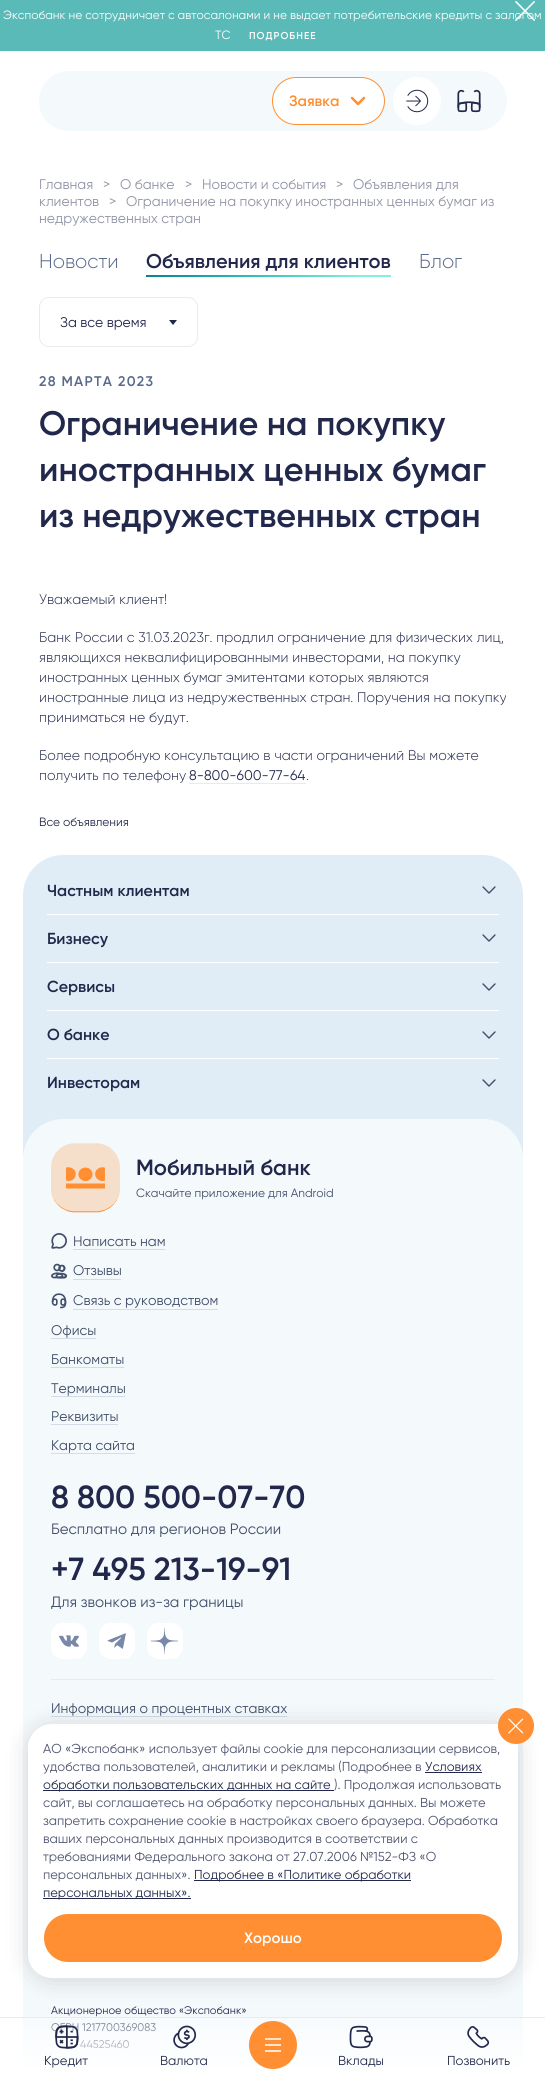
import math
import cairo



def draw_spaced(context, x, y, s, letter, word):
    context.move_to(x, y)
    for ch in s:
        context.show_text(ch)
        context.rel_move_to(letter + word * (ch == ' '), 0)


def rounded_rect(context, x, y, w, h, r):
    context.new_sub_path()
    for i, (u, v) in enumerate([(x + w - r, y + h - r), (x + r, y + h - r), (x + r, y + r), (x + w - r, y + r)]):
        context.arc(u, v, r, i * math.pi / 2, (i + 1) * math.pi / 2)
    context.close_path()


def draw_shadow(context, x, y, w, h, r, blur, alpha):
    context.push_group_with_content(cairo.Content.ALPHA)
    context.set_operator(cairo.Operator.SOURCE)
    for i in range(15, -16, -2):
        e = blur * i / 6
        if min(w, h) + 2 * e > 0:
            context.set_source_rgba(0, 0, 0, alpha * math.erfc((i - 1) / 8.5) / 2)
            rounded_rect(context, x - e, y - e, w + 2 * e, h + 2 * e, max(0, min(r + e + blur * .6, min(w, h) / 2 + e)))
            context.fill()
    context.mask(context.pop_group())


def draw_image(context, path, x, y, w, h):
    context.save()
    context.set_source_surface(cairo.ImageSurface.create_from_png(path), x, y)
    context.rectangle(x, y, w, h)
    context.fill()
    context.restore()


def draw(context):
    context.set_source_rgb(1, 1, 1)
    context.paint()
    context.set_source_rgb(90 / 255, 186 / 255, 184 / 255)
    context.rectangle(0, 0, 545, 51)
    context.fill()
    context.set_source_rgb(244 / 255, 249 / 255, 252 / 255)
    rounded_rect(context, 39, 71, 468, 60, 30)
    context.fill()
    context.set_source_rgb(1, 1, 1)
    rounded_rect(context, 272.5, 77.5, 112, 47, 23.5)
    context.fill_preserve()
    context.set_source_rgb(1, 143 / 255, 50 / 255)
    context.set_line_width(1)
    context.stroke()
    draw_image(context, "images/2.png", 350, 96, 16, 10)
    context.set_source_rgb(1, 1, 1)
    context.arc(417, 101, 24, 0, 2 * math.pi)
    context.fill()
    draw_image(context, "images/3.png", 406, 89, 23, 24)
    draw_image(context, "images/4.png", 457, 89, 24, 24)
    gradient = cairo.LinearGradient(266, 294, 271, 259)
    gradient.add_color_stop_rgba(0, 6 / 255, 127 / 255, 140 / 255, 1)
    gradient.add_color_stop_rgba(0.34, 35 / 255, 176 / 255, 176 / 255, 1)
    gradient.add_color_stop_rgba(0.88, 128 / 255, 241 / 255, 221 / 255, 1)
    context.set_source(gradient)
    context.rectangle(146, 275, 245, 2)
    context.fill()
    rounded_rect(context, 39.5, 297.5, 158, 49, 9.5)
    context.set_source_rgb(230 / 255, 236 / 255, 238 / 255)
    context.stroke()
    context.set_source_rgb(34 / 255, 40 / 255, 75 / 255)
    context.new_path()
    context.move_to(169, 320)
    context.line_to(177, 320)
    context.line_to(173, 325)
    context.close_path()
    context.fill()
    context.set_source_rgb(230 / 255, 236 / 255, 238 / 255)
    context.rectangle(189, 783, 117, 1)
    context.fill()
    context.set_source_rgb(224 / 255, 237 / 255, 246 / 255)
    context.new_path()
    context.move_to(63, 855)
    context.line_to(483, 855)
    context.curve_to(505, 855, 523, 873, 523, 895)
    context.line_to(523, 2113)
    context.line_to(23, 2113)
    context.line_to(23, 895)
    context.curve_to(23, 873, 41, 855, 63, 855)
    context.close_path()
    context.fill()
    draw_image(context, "images/5.png", 482, 886, 14, 8)
    context.set_source_rgb(1, 1, 1)
    context.rectangle(47, 914, 452, 1)
    context.fill()
    draw_image(context, "images/5.png", 482, 934, 14, 8)
    context.rectangle(47, 962, 452, 1)
    context.fill()
    draw_image(context, "images/5.png", 482, 983, 14, 8)
    context.rectangle(47, 1010, 452, 1)
    context.fill()
    draw_image(context, "images/5.png", 482, 1031, 14, 8)
    context.rectangle(47, 1058, 452, 1)
    context.fill()
    draw_image(context, "images/5.png", 482, 1079, 14, 8)
    context.set_source_rgb(244 / 255, 249 / 255, 252 / 255)
    context.new_path()
    context.move_to(63, 1119)
    context.line_to(483, 1119)
    context.curve_to(505, 1119, 523, 1137, 523, 1159)
    context.line_to(523, 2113)
    context.line_to(23, 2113)
    context.line_to(23, 1159)
    context.curve_to(23, 1137, 41, 1119, 63, 1119)
    context.close_path()
    context.fill()
    draw_image(context, "images/6.png", 51, 1143, 69, 70)
    draw_image(context, "images/7.png", 51, 1233, 16, 16)
    context.set_source_rgb(212 / 255, 220 / 255, 229 / 255)
    context.rectangle(73, 1249, 92, 1)
    context.fill()
    draw_image(context, "images/8.png", 51, 1263, 16, 16)
    context.rectangle(73, 1279, 48, 1)
    context.fill()
    draw_image(context, "images/9.png", 51, 1293, 16, 16)
    context.rectangle(73, 1309, 145, 1)
    context.fill()
    context.rectangle(51, 1338, 45, 1)
    context.fill()
    context.rectangle(51, 1367, 73, 1)
    context.fill()
    context.rectangle(51, 1396, 74, 1)
    context.fill()
    context.rectangle(51, 1424, 67, 1)
    context.fill()
    context.rectangle(51, 1453, 84, 1)
    context.fill()
    context.set_source_rgb(1, 1, 1)
    rounded_rect(context, 51, 1623, 36, 36, 12)
    context.fill()
    draw_image(context, "images/10.png", 59, 1635, 20, 12)
    rounded_rect(context, 99, 1623, 36, 36, 12)
    context.fill()
    draw_image(context, "images/11.png", 107, 1633, 19, 16)
    rounded_rect(context, 147, 1623, 36, 36, 12)
    context.fill()
    draw_image(context, "images/12.png", 151, 1628, 27, 26)
    context.set_source_rgb(225 / 255, 238 / 255, 247 / 255)
    context.rectangle(51, 1679, 444, 1)
    context.fill()
    context.set_source_rgb(212 / 255, 220 / 255, 229 / 255)
    context.rectangle(51, 1716, 236, 1)
    context.fill()
    context.set_source_rgb(0, 0, 0)
    draw_shadow(context, 28, 1726, 490, 254, 24, 12, 0.15)
    context.set_source_rgb(1, 1, 1)
    rounded_rect(context, 28, 1724, 490, 254, 24)
    context.fill()
    context.set_source_rgb(34 / 255, 40 / 255, 75 / 255)
    context.rectangle(425, 1772, 57, 1)
    context.fill()
    context.rectangle(43, 1790, 291, 1)
    context.fill()
    context.rectangle(194, 1880, 217, 1)
    context.fill()
    context.rectangle(43, 1898, 148, 1)
    context.fill()
    context.set_source_rgb(1, 143 / 255, 50 / 255)
    rounded_rect(context, 44, 1914, 458, 48, 24)
    context.fill()
    context.set_source_rgb(224 / 255, 237 / 255, 246 / 255)
    context.rectangle(0, 2017, 545, 1)
    context.fill()
    context.select_font_face("Gilroy")
    context.set_font_size(12)
    context.set_source_rgb(1, 1, 1)
    context.move_to(3, 19)
    context.show_text("Экспобанк не сотрудничает с автосалонами и не выдает потребительские кредиты с залогом")
    draw_image(context, "images/1.png", 515, 1, 20, 20)
    context.move_to(215, 39)
    context.show_text("ТС")
    context.select_font_face("Gilroy SemiBold")
    context.set_font_size(10)
    draw_spaced(context, 249, 39, "ПОДРОБНЕЕ", 1, 0)
    context.set_font_size(15)
    context.set_source_rgb(1, 143 / 255, 50 / 255)
    context.move_to(289, 106)
    context.show_text("Заявка")
    context.select_font_face("Gilroy")
    context.set_font_size(14)
    context.set_source_rgb(145 / 255, 148 / 255, 165 / 255)
    context.move_to(39, 189)
    context.show_text("Главная")
    context.move_to(103, 189)
    context.show_text(">")
    context.move_to(120, 189)
    context.show_text("О банке")
    context.move_to(185, 189)
    context.show_text(">")
    context.move_to(202, 189)
    context.show_text("Новости и события")
    context.move_to(336, 189)
    context.show_text(">")
    context.move_to(353, 189)
    context.show_text("Объявления для")
    context.move_to(39, 206)
    context.show_text("клиентов")
    context.move_to(109, 206)
    context.show_text(">")
    context.move_to(126, 206)
    context.show_text("Ограничение на покупку иностранных ценных бумаг из")
    context.move_to(39, 223)
    context.show_text("недружественных стран")
    context.select_font_face("Gilroy Light")
    context.set_font_size(20)
    context.set_source_rgb(89 / 255, 106 / 255, 140 / 255)
    context.move_to(39, 268)
    context.show_text("Новости")
    context.select_font_face("Gilroy SemiBold")
    context.set_source_rgb(34 / 255, 40 / 255, 75 / 255)
    context.move_to(146, 268)
    context.show_text("Объявления для клиентов")
    context.select_font_face("Gilroy Light")
    context.set_source_rgb(89 / 255, 106 / 255, 140 / 255)
    context.move_to(419, 268)
    context.show_text("Блог")
    context.select_font_face("Gilroy")
    context.set_font_size(14)
    context.set_source_rgb(34 / 255, 40 / 255, 75 / 255)
    context.move_to(60, 327)
    context.show_text("За все время")
    context.select_font_face("Gilroy SemiBold")
    context.set_source_rgb(89 / 255, 106 / 255, 140 / 255)
    draw_spaced(context, 39, 386, "28 МАРТА 2023", 1.25, 0)
    context.set_font_size(34)
    context.set_source_rgb(34 / 255, 40 / 255, 75 / 255)
    context.move_to(39, 435)
    context.show_text("Ограничение на покупку")
    context.move_to(39, 481)
    context.show_text("иностранных ценных бумаг")
    context.move_to(39, 527)
    context.show_text("из недружественных стран")
    context.select_font_face("Gilroy Light")
    context.set_font_size(14)
    context.move_to(39, 604)
    context.show_text("Уважаемый клиент!")
    context.move_to(39, 642)
    context.show_text("Банк России с 31.03.2023г. продлил ограничение для физических лиц,")
    context.move_to(39, 662)
    context.show_text("являющихся неквалифицированными инвесторами, на покупку")
    context.move_to(39, 682)
    context.show_text("иностранных ценных бумаг эмитентами которых являются")
    context.move_to(39, 702)
    context.show_text("иностранные лица из недружественных стран. Поручения на покупку")
    context.move_to(39, 722)
    context.show_text("приниматься не будут.")
    context.move_to(39, 760)
    context.show_text("Более подробную консультацию в части ограничений Вы можете")
    context.move_to(39, 780)
    context.show_text("получить по телефону")
    context.select_font_face("Gilroy")
    context.move_to(189, 780)
    context.show_text("8-800-600-77-64")
    context.select_font_face("Gilroy Light")
    context.move_to(306, 780)
    context.show_text(".")
    context.select_font_face("Gilroy")
    context.set_font_size(12)
    context.move_to(39, 826)
    context.show_text("Все объявления")
    context.select_font_face("Gilroy SemiBold")
    context.set_font_size(16)
    context.move_to(47, 896)
    context.show_text("Частным клиентам")
    context.move_to(47, 944)
    context.show_text("Бизнесу")
    context.move_to(47, 992)
    context.show_text("Сервисы")
    context.move_to(47, 1040)
    context.show_text("О банке")
    context.move_to(47, 1088)
    context.show_text("Инвесторам")
    context.set_font_size(22)
    context.move_to(136, 1175)
    context.show_text("Мобильный банк")
    context.select_font_face("Gilroy")
    context.set_font_size(12)
    context.set_source_rgb(65 / 255, 78 / 255, 105 / 255)
    context.move_to(136, 1197)
    context.show_text("Скачайте приложение для Android")
    context.set_font_size(14)
    context.move_to(73, 1246)
    context.show_text("Написать нам")
    context.move_to(73, 1275)
    context.show_text("Отзывы")
    context.move_to(73, 1305)
    context.show_text("Связь с руководством")
    context.move_to(51, 1335)
    context.show_text("Офисы")
    context.move_to(51, 1364)
    context.show_text("Банкоматы")
    context.move_to(51, 1393)
    context.show_text("Терминалы")
    context.move_to(51, 1421)
    context.show_text("Реквизиты")
    context.move_to(51, 1450)
    context.show_text("Карта сайта")
    context.select_font_face("Gilroy SemiBold")
    context.set_font_size(32)
    context.set_source_rgb(34 / 255, 40 / 255, 75 / 255)
    context.move_to(51, 1508)
    context.show_text("8 800 500-07-70")
    context.select_font_face("Gilroy")
    context.set_font_size(15)
    context.set_source_rgb(65 / 255, 78 / 255, 105 / 255)
    context.move_to(51, 1534)
    context.show_text("Бесплатно для регионов России")
    context.select_font_face("Gilroy SemiBold")
    context.set_font_size(32)
    context.set_source_rgb(34 / 255, 40 / 255, 75 / 255)
    context.move_to(51, 1580)
    context.show_text("+7 495 213-19-91")
    context.select_font_face("Gilroy")
    context.set_font_size(15)
    context.set_source_rgb(65 / 255, 78 / 255, 105 / 255)
    context.move_to(51, 1607)
    context.show_text("Для звонков из-за границы")
    context.set_font_size(14)
    context.move_to(51, 1713)
    context.show_text("Информация о процентных ставках")
    context.set_font_size(11)
    context.set_source_rgb(34 / 255, 40 / 255, 75 / 255)
    context.move_to(51, 2014)
    context.show_text("Акционерное общество «Экспобанк»")
    context.move_to(51, 2031)
    context.show_text("ОГРН 1217700369083")
    context.move_to(80, 2048)
    context.show_text("44525460")
    context.set_font_size(13)
    context.set_source_rgb(78 / 255, 83 / 255, 111 / 255)
    context.move_to(43, 1753)
    context.show_text("АО «Экспобанк» использует файлы cookie для персонализации сервисов,")
    draw_image(context, "images/13.png", 498, 1708, 36, 36)
    context.move_to(43, 1771)
    context.show_text("удобства пользователей, аналитики и рекламы (Подробнее в")
    context.set_source_rgb(34 / 255, 40 / 255, 75 / 255)
    context.move_to(425, 1771)
    context.show_text("Условиях")
    context.move_to(43, 1789)
    context.show_text("обработки пользовательских данных на сайте")
    context.set_source_rgb(78 / 255, 83 / 255, 111 / 255)
    context.move_to(334, 1789)
    context.show_text("). Продолжая использовать")
    context.move_to(43, 1807)
    context.show_text("сайт, вы соглашаетесь на обработку персональных данных. Вы можете")
    context.move_to(43, 1825)
    context.show_text("запретить сохранение cookie в настройках своего браузера. Обработка")
    context.move_to(43, 1843)
    context.show_text("ваших персональных данных производится в соответствии с")
    context.move_to(43, 1861)
    context.show_text("требованиями Федерального закона от 27.07.2006 №152-ФЗ «О")
    context.move_to(43, 1879)
    context.show_text("персональных данных».")
    context.set_source_rgb(34 / 255, 40 / 255, 75 / 255)
    context.move_to(194, 1879)
    context.show_text("Подробнее в «Политике обработки")
    context.move_to(43, 1897)
    context.show_text("персональных данных».")
    context.select_font_face("Gilroy SemiBold")
    context.set_font_size(15)
    context.set_source_rgb(1, 1, 1)
    context.move_to(244, 1943)
    context.show_text("Хорошо")
    gradient = cairo.LinearGradient(273, 2017, 273, 2073)
    gradient.add_color_stop_rgba(0, 1, 1, 1, 0.3)
    gradient.add_color_stop_rgba(1, 1, 1, 1, 1)
    context.set_source(gradient)
    context.rectangle(23, 2018, 500, 55)
    context.fill()
    draw_image(context, "images/14.png", 55, 2025, 24, 24)
    context.select_font_face("Gilroy")
    context.set_font_size(13)
    context.set_source_rgb(34 / 255, 40 / 255, 75 / 255)
    context.move_to(44, 2065)
    context.show_text("Кредит")
    draw_image(context, "images/15.png", 173, 2025, 24, 24)
    context.move_to(160, 2065)
    context.show_text("Валюта")
    context.set_source_rgb(1, 143 / 255, 50 / 255)
    context.new_path()
    context.arc(273, 2045, 24, 0, 2 * math.pi)
    context.fill()
    context.new_path()
    context.move_to(265, 2039)
    context.line_to(281, 2039)
    context.move_to(265, 2045)
    context.line_to(281, 2045)
    context.move_to(265, 2051)
    context.line_to(281, 2051)
    context.set_source_rgb(1, 1, 1)
    context.set_line_width(1.5)
    context.stroke()
    draw_image(context, "images/16.png", 349, 2025, 24, 24)
    context.set_source_rgb(34 / 255, 40 / 255, 75 / 255)
    context.move_to(338, 2065)
    context.show_text("Вклады")
    draw_image(context, "images/17.png", 467, 2026, 23, 22)
    context.move_to(447, 2065)
    context.show_text("Позвонить")


surface = cairo.ImageSurface(cairo.Format.RGB24, 545, 2073)
context = cairo.Context(surface)
options = cairo.FontOptions()
options.set_hint_metrics(cairo.HintMetrics.OFF)
options.set_hint_style(cairo.HintStyle.NONE)
context.set_font_options(options)
context.set_miter_limit(4)
draw(context)
surface.write_to_png("out.png")
